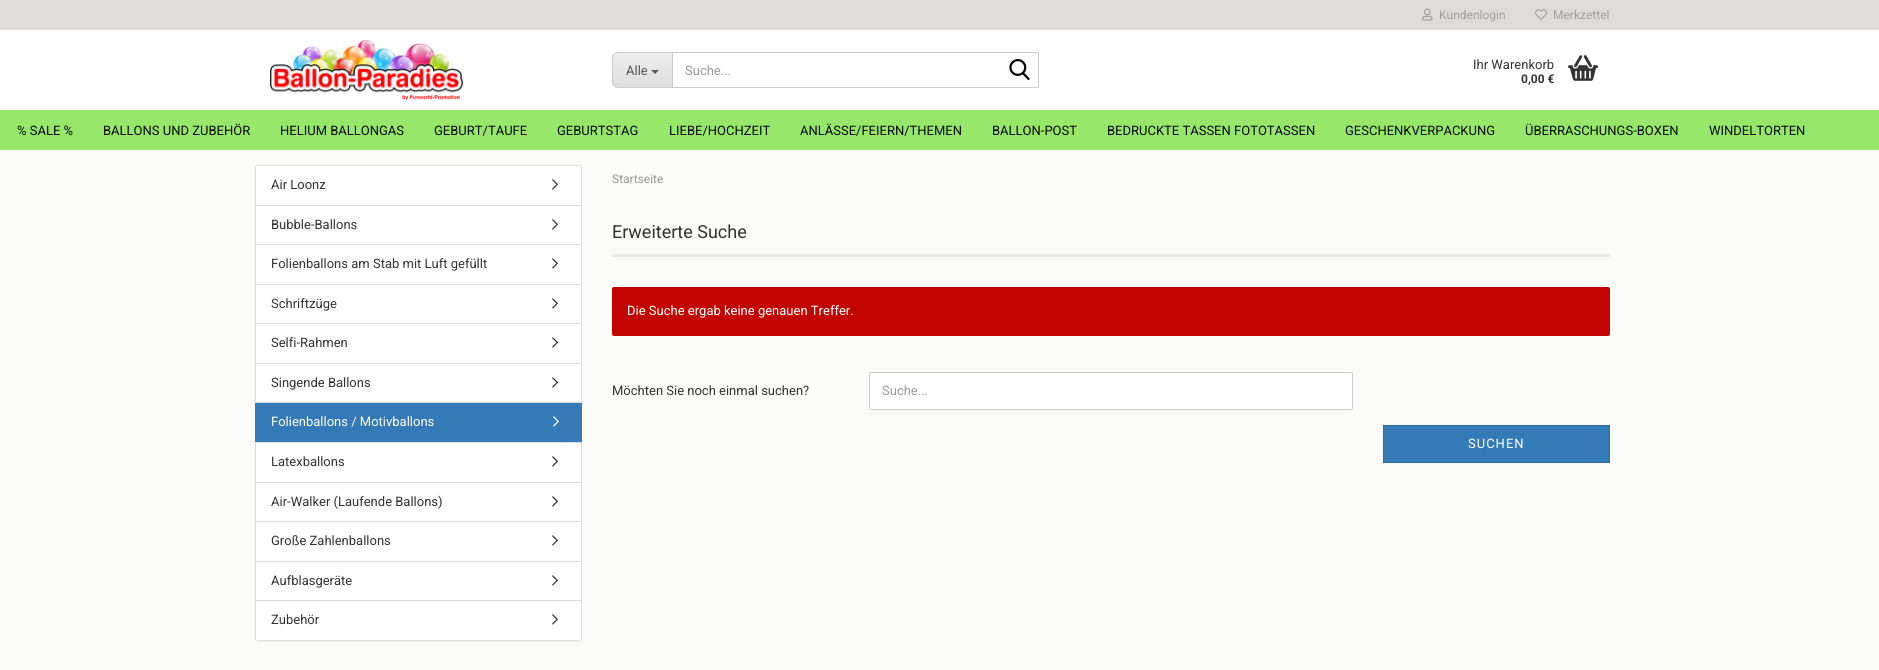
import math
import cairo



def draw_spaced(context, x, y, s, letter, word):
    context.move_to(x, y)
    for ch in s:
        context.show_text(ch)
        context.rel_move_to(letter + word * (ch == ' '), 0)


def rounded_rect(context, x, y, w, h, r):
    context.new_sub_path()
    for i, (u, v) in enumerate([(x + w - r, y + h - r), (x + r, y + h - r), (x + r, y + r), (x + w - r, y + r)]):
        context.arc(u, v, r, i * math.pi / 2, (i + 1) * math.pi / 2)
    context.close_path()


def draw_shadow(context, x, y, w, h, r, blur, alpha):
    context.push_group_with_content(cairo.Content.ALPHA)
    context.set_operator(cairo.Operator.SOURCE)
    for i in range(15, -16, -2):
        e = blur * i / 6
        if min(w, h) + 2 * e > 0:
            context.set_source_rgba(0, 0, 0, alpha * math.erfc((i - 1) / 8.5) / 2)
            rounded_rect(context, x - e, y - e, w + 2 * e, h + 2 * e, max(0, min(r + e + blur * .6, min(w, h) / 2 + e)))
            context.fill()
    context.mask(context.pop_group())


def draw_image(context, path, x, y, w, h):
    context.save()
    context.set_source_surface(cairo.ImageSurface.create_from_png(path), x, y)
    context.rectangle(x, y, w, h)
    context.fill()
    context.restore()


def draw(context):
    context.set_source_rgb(1, 1, 1)
    context.paint()
    context.set_source_rgb(251 / 255, 251 / 255, 249 / 255)
    context.rectangle(0, 150, 1879, 520)
    context.fill()
    context.set_source_rgb(222 / 255, 219 / 255, 219 / 255)
    context.rectangle(0, 0, 1879, 30)
    context.fill()
    draw_image(context, "images/1.png", 1422, 8, 11, 13)
    draw_image(context, "images/2.png", 1535, 9, 12, 11)
    draw_image(context, "images/3.png", 270, 40, 194, 60)
    context.save()
    context.new_path()
    context.move_to(618, 52)
    context.line_to(672, 52)
    context.line_to(672, 88)
    context.line_to(618, 88)
    context.curve_to(614.5, 88, 612, 85.5, 612, 82)
    context.line_to(612, 58)
    context.curve_to(612, 54.5, 614.5, 52, 618, 52)
    context.close_path()
    context.clip()
    gradient = cairo.LinearGradient(643, 53, 643, 87)
    gradient.add_color_stop_rgba(0, 238 / 255, 238 / 255, 238 / 255, 1)
    gradient.add_color_stop_rgba(1, 222 / 255, 222 / 255, 222 / 255, 1)
    context.set_source(gradient)
    context.rectangle(612, 53, 60, 34)
    context.fill()
    context.restore()
    context.set_source_rgb(204 / 255, 204 / 255, 204 / 255)
    context.set_fill_rule(cairo.FillRule.EVEN_ODD)
    context.new_path()
    context.move_to(618, 52)
    context.line_to(672, 52)
    context.line_to(672, 88)
    context.line_to(618, 88)
    context.curve_to(615, 88, 612, 85, 612, 82)
    context.line_to(612, 58)
    context.curve_to(612, 55, 615, 52, 618, 52)
    context.close_path()
    context.move_to(618, 53)
    context.line_to(672, 53)
    context.line_to(672, 87)
    context.line_to(618, 87)
    context.curve_to(615, 87, 613, 85, 613, 82)
    context.line_to(613, 58)
    context.curve_to(613, 55, 615, 53, 618, 53)
    context.close_path()
    context.fill()
    context.set_source_rgb(85 / 255, 85 / 255, 85 / 255)
    context.set_fill_rule(cairo.FillRule.WINDING)
    context.new_path()
    context.move_to(651, 70)
    context.line_to(659, 70)
    context.line_to(655, 74)
    context.close_path()
    context.fill()
    context.rectangle(672.5, 52.5, 366, 35)
    context.set_source_rgb(204 / 255, 204 / 255, 204 / 255)
    context.set_line_width(1)
    context.stroke()
    draw_image(context, "images/4.png", 1009, 59, 21, 21)
    draw_image(context, "images/5.png", 1568, 55, 30, 26)
    context.set_source_rgb(151 / 255, 232 / 255, 106 / 255)
    context.rectangle(0, 110, 1879, 40)
    context.fill()
    context.set_source_rgb(0, 0, 0)
    draw_shadow(context, 255, 166, 327, 476, 2, 0.5, 0.05)
    context.set_source_rgb(1, 1, 1)
    rounded_rect(context, 255, 165, 327, 476, 2)
    context.fill()
    context.set_source_rgb(221 / 255, 221 / 255, 221 / 255)
    context.rectangle(256, 165, 325, 1)
    context.fill()
    context.rectangle(581, 166, 1, 474)
    context.fill()
    context.rectangle(255, 166, 1, 474)
    context.fill()
    context.rectangle(256, 205, 325, 1)
    context.fill()
    draw_image(context, "images/6.png", 552, 179, 6, 11)
    context.rectangle(256, 244, 325, 1)
    context.fill()
    draw_image(context, "images/6.png", 552, 219, 6, 11)
    context.rectangle(256, 284, 325, 1)
    context.fill()
    draw_image(context, "images/6.png", 552, 258, 6, 11)
    context.rectangle(256, 323, 325, 1)
    context.fill()
    draw_image(context, "images/6.png", 552, 298, 6, 11)
    context.rectangle(256, 363, 325, 1)
    context.fill()
    draw_image(context, "images/6.png", 552, 337, 6, 11)
    context.rectangle(256, 402, 325, 1)
    context.fill()
    draw_image(context, "images/6.png", 552, 377, 6, 11)
    context.rectangle(256, 442, 325, 1)
    context.fill()
    context.set_source_rgb(51 / 255, 122 / 255, 183 / 255)
    context.rectangle(255, 403, 327, 39)
    context.fill()
    draw_image(context, "images/7.png", 553, 416, 6, 11)
    context.set_source_rgb(221 / 255, 221 / 255, 221 / 255)
    context.rectangle(256, 482, 325, 1)
    context.fill()
    draw_image(context, "images/6.png", 552, 456, 6, 11)
    context.rectangle(256, 521, 325, 1)
    context.fill()
    draw_image(context, "images/6.png", 552, 496, 6, 11)
    context.rectangle(256, 561, 325, 1)
    context.fill()
    draw_image(context, "images/6.png", 552, 535, 6, 11)
    context.rectangle(256, 600, 325, 1)
    context.fill()
    draw_image(context, "images/6.png", 552, 575, 6, 11)
    context.rectangle(257, 640, 323, 1)
    context.fill()
    draw_image(context, "images/6.png", 552, 614, 6, 11)
    context.set_source_rgb(231 / 255, 231 / 255, 231 / 255)
    context.rectangle(612, 254, 998, 3)
    context.fill()
    context.set_source_rgb(194 / 255, 4 / 255, 0)
    rounded_rect(context, 612, 287, 998, 49, 2)
    context.fill()
    context.set_source_rgb(1, 1, 1)
    rounded_rect(context, 869.5, 372.5, 483, 37, 1.5)
    context.fill_preserve()
    context.set_source_rgb(204 / 255, 204 / 255, 204 / 255)
    context.stroke()
    context.set_source_rgb(51 / 255, 122 / 255, 183 / 255)
    context.rectangle(1383.5, 425.5, 226, 37)
    context.fill_preserve()
    context.set_source_rgb(45 / 255, 109 / 255, 163 / 255)
    context.stroke()
    context.select_font_face("Roboto")
    context.set_font_size(12)
    context.set_source_rgb(159 / 255, 159 / 255, 159 / 255)
    context.move_to(1439, 19)
    context.show_text("Kundenlogin")
    context.move_to(1553, 19)
    context.show_text("Merkzettel")
    context.set_font_size(13)
    context.set_source_rgb(85 / 255, 85 / 255, 85 / 255)
    context.move_to(626, 75)
    context.show_text("Alle")
    context.set_source_rgb(153 / 255, 153 / 255, 153 / 255)
    context.move_to(685, 75)
    context.show_text("Suche...")
    context.set_source_rgb(51 / 255, 51 / 255, 51 / 255)
    context.move_to(1473, 69)
    context.show_text("Ihr Warenkorb")
    context.select_font_face("Roboto", cairo.FontSlant.NORMAL, cairo.FontWeight.BOLD)
    context.set_font_size(12)
    context.move_to(1521, 83)
    context.show_text("0,00 €")
    context.select_font_face("Roboto")
    context.set_font_size(13)
    context.set_source_rgb(8 / 255, 8 / 255, 8 / 255)
    context.move_to(17, 135)
    context.show_text("% SALE %")
    context.move_to(103, 135)
    context.show_text("BALLONS UND ZUBEHÖR")
    context.move_to(280, 135)
    context.show_text("HELIUM BALLONGAS")
    context.move_to(434, 135)
    context.show_text("GEBURT/TAUFE")
    context.move_to(557, 135)
    context.show_text("GEBURTSTAG")
    context.move_to(669, 135)
    context.show_text("LIEBE/HOCHZEIT")
    context.move_to(800, 135)
    context.show_text("ANLÄSSE/FEIERN/THEMEN")
    context.move_to(992, 135)
    context.show_text("BALLON-POST")
    context.move_to(1107, 135)
    context.show_text("BEDRUCKTE TASSEN FOTOTASSEN")
    context.move_to(1345, 135)
    context.show_text("GESCHENKVERPACKUNG")
    context.move_to(1525, 135)
    context.show_text("ÜBERRASCHUNGS-BOXEN")
    context.move_to(1709, 135)
    context.show_text("WINDELTORTEN")
    context.set_source_rgb(51 / 255, 51 / 255, 51 / 255)
    context.move_to(271, 189)
    context.show_text("Air Loonz")
    context.move_to(271, 229)
    context.show_text("Bubble-Ballons")
    context.move_to(271, 268)
    context.show_text("Folienballons am Stab mit Luft gefüllt")
    context.move_to(271, 308)
    context.show_text("Schriftzüge")
    context.move_to(271, 347)
    context.show_text("Selfi-Rahmen")
    context.move_to(271, 387)
    context.show_text("Singende Ballons")
    context.set_source_rgb(1, 1, 1)
    context.move_to(271, 426)
    context.show_text("Folienballons / Motivballons")
    context.set_source_rgb(51 / 255, 51 / 255, 51 / 255)
    context.move_to(271, 466)
    context.show_text("Latexballons")
    context.move_to(271, 506)
    context.show_text("Air-Walker (Laufende Ballons)")
    context.move_to(271, 545)
    context.show_text("Große Zahlenballons")
    context.move_to(271, 585)
    context.show_text("Aufblasgeräte")
    context.move_to(271, 624)
    context.show_text("Zubehör")
    context.set_font_size(12)
    context.set_source_rgb(153 / 255, 153 / 255, 153 / 255)
    context.move_to(612, 183)
    context.show_text("Startseite")
    context.set_font_size(18)
    context.set_source_rgb(51 / 255, 51 / 255, 51 / 255)
    context.move_to(612, 238)
    context.show_text("Erweiterte Suche")
    context.set_font_size(13)
    context.set_source_rgb(1, 1, 1)
    context.move_to(627, 315)
    context.show_text("Die Suche ergab keine genauen Treffer.")
    context.set_source_rgb(51 / 255, 51 / 255, 51 / 255)
    context.move_to(612, 395)
    context.show_text("Möchten Sie noch einmal suchen?")
    context.set_source_rgb(153 / 255, 153 / 255, 153 / 255)
    context.move_to(882, 395)
    context.show_text("Suche...")
    context.set_source_rgb(1, 1, 1)
    draw_spaced(context, 1468, 448, "SUCHEN", 1, 0)


surface = cairo.ImageSurface(cairo.Format.RGB24, 1879, 670)
context = cairo.Context(surface)
options = cairo.FontOptions()
options.set_hint_metrics(cairo.HintMetrics.OFF)
options.set_hint_style(cairo.HintStyle.NONE)
context.set_font_options(options)
context.set_miter_limit(4)
draw(context)
surface.write_to_png("out.png")
